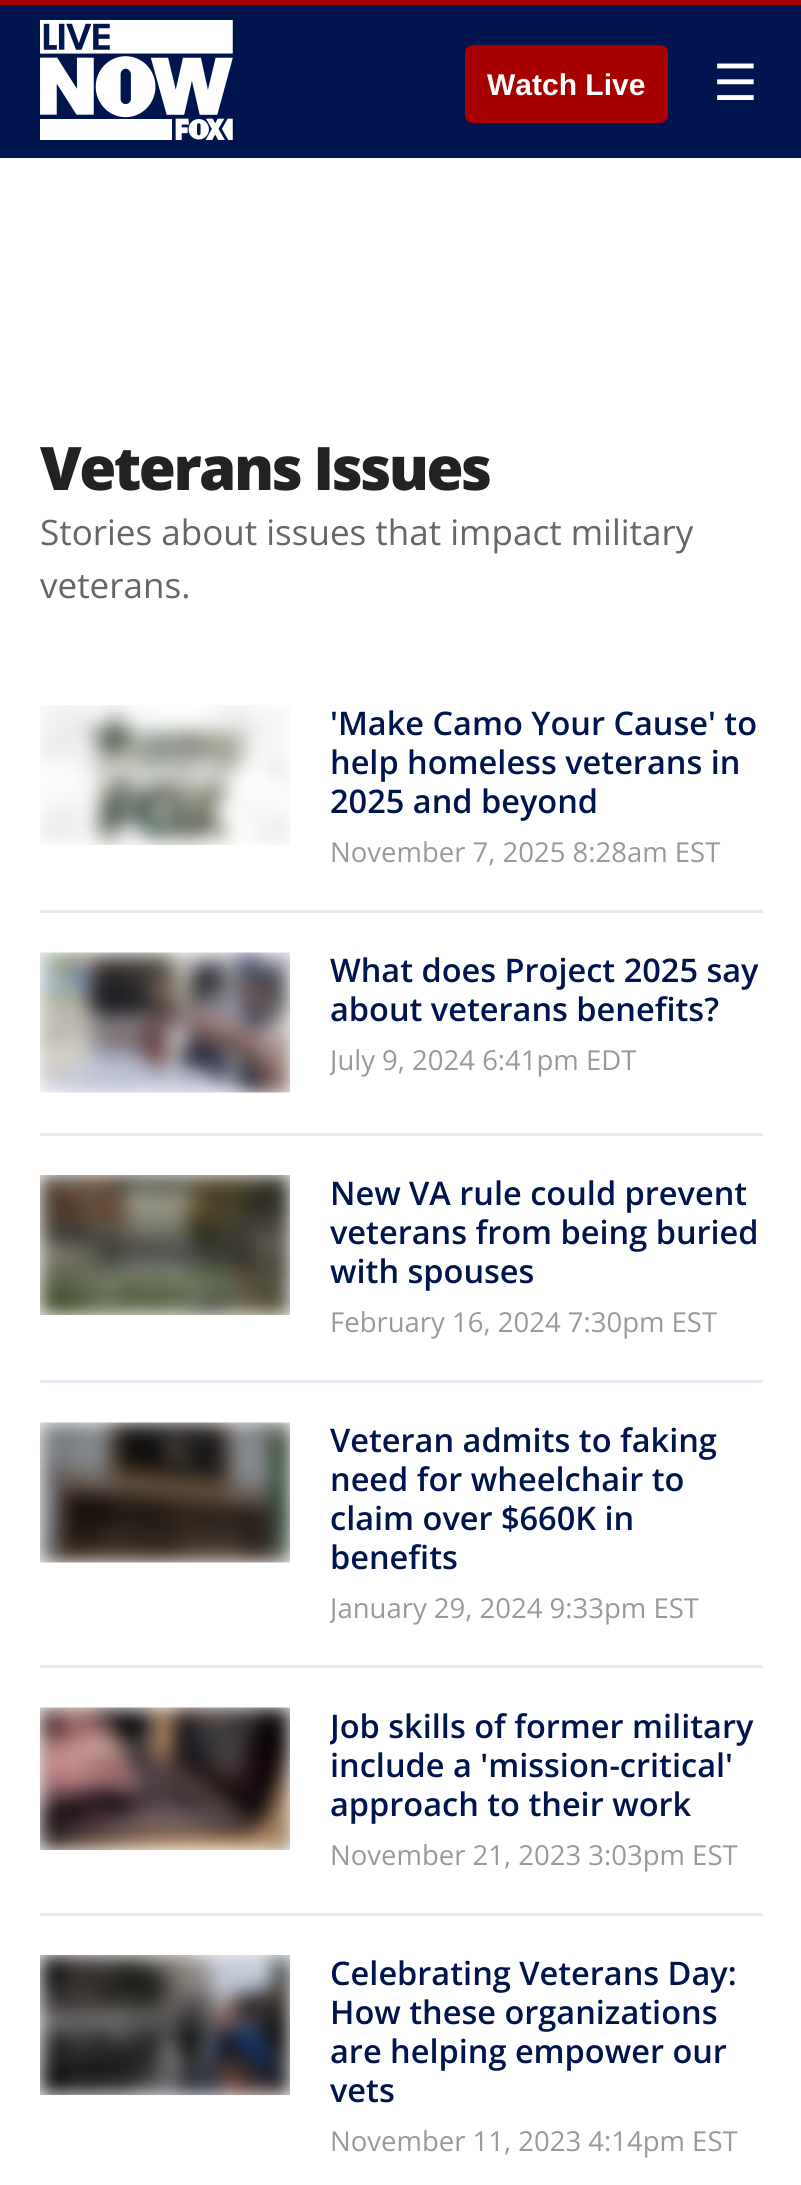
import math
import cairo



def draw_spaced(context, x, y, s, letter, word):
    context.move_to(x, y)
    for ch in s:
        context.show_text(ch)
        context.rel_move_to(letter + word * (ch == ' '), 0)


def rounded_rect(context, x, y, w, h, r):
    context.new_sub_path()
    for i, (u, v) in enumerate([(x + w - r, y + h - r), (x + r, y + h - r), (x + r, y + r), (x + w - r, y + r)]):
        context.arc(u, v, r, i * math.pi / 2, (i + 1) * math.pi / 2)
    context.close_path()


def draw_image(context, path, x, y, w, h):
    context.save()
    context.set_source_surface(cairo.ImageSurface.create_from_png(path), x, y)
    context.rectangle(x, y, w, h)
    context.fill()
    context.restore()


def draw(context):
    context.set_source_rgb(1, 1, 1)
    context.paint()
    context.set_source_rgb(0, 20 / 255, 78 / 255)
    context.rectangle(0, 5, 801, 153)
    context.fill()
    context.set_source_rgb(167 / 255, 0, 0)
    context.rectangle(0, 0, 801, 5)
    context.fill()
    draw_image(context, "images/1.png", 40, 20, 193, 120)
    rounded_rect(context, 465, 45, 203, 78, 8)
    context.fill()
    context.set_source_rgb(230 / 255, 233 / 255, 243 / 255)
    context.rectangle(40, 910, 723, 3)
    context.fill()
    draw_image(context, "images/2.png", 40, 705, 250, 140)
    context.rectangle(40, 1133, 723, 3)
    context.fill()
    draw_image(context, "images/3.png", 40, 952, 250, 141)
    context.rectangle(40, 1380, 723, 3)
    context.fill()
    draw_image(context, "images/4.png", 40, 1175, 250, 140)
    context.rectangle(40, 1665, 723, 3)
    context.fill()
    draw_image(context, "images/5.png", 40, 1422, 250, 141)
    context.rectangle(40, 1913, 723, 3)
    context.fill()
    draw_image(context, "images/6.png", 40, 1707, 250, 143)
    draw_image(context, "images/7.png", 40, 1955, 250, 140)
    context.select_font_face("Liberation Sans", cairo.FontSlant.NORMAL, cairo.FontWeight.BOLD)
    context.set_font_size(30)
    context.set_source_rgb(1, 1, 1)
    context.move_to(487, 95)
    context.show_text("Watch Live")
    context.select_font_face("DejaVu Sans")
    context.set_font_size(50)
    context.move_to(713, 100)
    context.show_text("☰")
    context.select_font_face("Open Sans ExtraBold")
    context.set_font_size(60)
    context.set_source_rgb(34 / 255, 34 / 255, 34 / 255)
    draw_spaced(context, 40, 490, "Veterans Issues", -2.5, 0)
    context.select_font_face("Open Sans")
    context.set_font_size(35)
    context.set_source_rgb(102 / 255, 102 / 255, 102 / 255)
    context.move_to(40, 545)
    context.show_text("Stories about issues that impact military")
    context.move_to(40, 598)
    context.show_text("veterans.")
    context.select_font_face("Open Sans SemiBold")
    context.set_font_size(32.5)
    context.set_source_rgb(0, 20 / 255, 78 / 255)
    context.move_to(330, 735)
    context.show_text("'Make Camo Your Cause' to")
    context.move_to(330, 774)
    context.show_text("help homeless veterans in")
    context.move_to(330, 813)
    context.show_text("2025 and beyond")
    context.select_font_face("Open Sans")
    context.set_font_size(27.5)
    context.set_source_rgb(153 / 255, 153 / 255, 153 / 255)
    context.move_to(330, 862)
    context.show_text("November 7, 2025 8:28am EST")
    context.select_font_face("Open Sans SemiBold")
    context.set_font_size(32.5)
    context.set_source_rgb(0, 20 / 255, 78 / 255)
    context.move_to(330, 982)
    context.show_text("What does Project 2025 say")
    context.move_to(330, 1021)
    context.show_text("about veterans benefits?")
    context.save()
    context.rectangle(330, 953, 433, 125)
    context.clip()
    context.select_font_face("Open Sans")
    context.set_font_size(27.5)
    context.set_source_rgb(153 / 255, 153 / 255, 153 / 255)
    context.move_to(330, 1070)
    context.show_text("July 9, 2024 6:41pm EDT")
    context.restore()
    context.move_to(330, 1205)
    context.show_text("New VA rule could prevent")
    context.move_to(330, 1244)
    context.show_text("veterans from being buried")
    context.move_to(330, 1283)
    context.show_text("with spouses")
    context.select_font_face("Open Sans")
    context.set_font_size(27.5)
    context.set_source_rgb(153 / 255, 153 / 255, 153 / 255)
    context.move_to(330, 1332)
    context.show_text("February 16, 2024 7:30pm EST")
    context.select_font_face("Open Sans SemiBold")
    context.set_font_size(32.5)
    context.set_source_rgb(0, 20 / 255, 78 / 255)
    context.move_to(330, 1452)
    context.show_text("Veteran admits to faking")
    context.move_to(330, 1491)
    context.show_text("need for wheelchair to")
    context.move_to(330, 1530)
    context.show_text("claim over $660K in")
    context.move_to(330, 1569)
    context.show_text("benefits")
    context.save()
    context.rectangle(330, 1423, 433, 202)
    context.clip()
    context.select_font_face("Open Sans")
    context.set_font_size(27.5)
    context.set_source_rgb(153 / 255, 153 / 255, 153 / 255)
    context.move_to(330, 1618)
    context.show_text("January 29, 2024 9:33pm EST")
    context.restore()
    context.save()
    context.rectangle(330, 1708, 433, 165)
    context.clip()
    context.move_to(330, 1738)
    context.show_text("Job skills of former military")
    context.restore()
    context.move_to(330, 1777)
    context.show_text("include a 'mission-critical'")
    context.move_to(330, 1816)
    context.show_text("approach to their work")
    context.select_font_face("Open Sans")
    context.set_font_size(27.5)
    context.set_source_rgb(153 / 255, 153 / 255, 153 / 255)
    context.move_to(330, 1865)
    context.show_text("November 21, 2023 3:03pm EST")
    context.select_font_face("Open Sans SemiBold")
    context.set_font_size(32.5)
    context.set_source_rgb(0, 20 / 255, 78 / 255)
    context.move_to(330, 1985)
    context.show_text("Celebrating Veterans Day:")
    context.move_to(330, 2024)
    context.show_text("How these organizations")
    context.move_to(330, 2063)
    context.show_text("are helping empower our")
    context.move_to(330, 2102)
    context.show_text("vets")
    context.select_font_face("Open Sans")
    context.set_font_size(27.5)
    context.set_source_rgb(153 / 255, 153 / 255, 153 / 255)
    context.move_to(330, 2151)
    context.show_text("November 11, 2023 4:14pm EST")


surface = cairo.ImageSurface(cairo.Format.RGB24, 801, 2185)
context = cairo.Context(surface)
options = cairo.FontOptions()
options.set_hint_metrics(cairo.HintMetrics.OFF)
options.set_hint_style(cairo.HintStyle.NONE)
context.set_font_options(options)
context.set_miter_limit(4)
draw(context)
surface.write_to_png("out.png")
